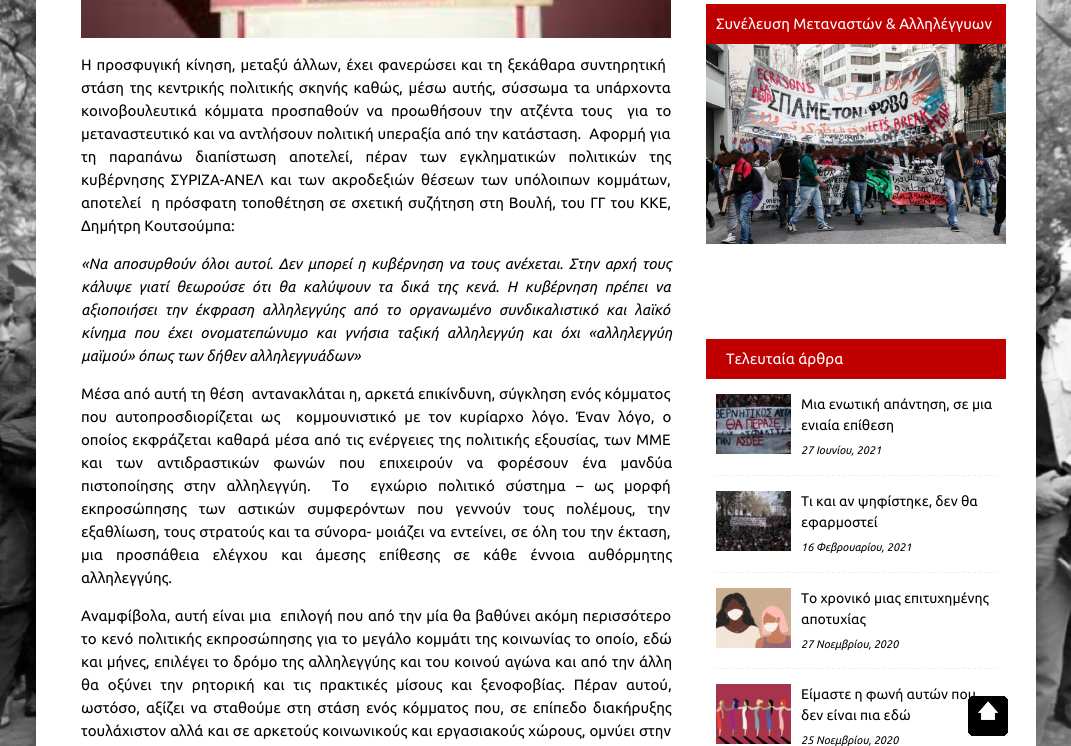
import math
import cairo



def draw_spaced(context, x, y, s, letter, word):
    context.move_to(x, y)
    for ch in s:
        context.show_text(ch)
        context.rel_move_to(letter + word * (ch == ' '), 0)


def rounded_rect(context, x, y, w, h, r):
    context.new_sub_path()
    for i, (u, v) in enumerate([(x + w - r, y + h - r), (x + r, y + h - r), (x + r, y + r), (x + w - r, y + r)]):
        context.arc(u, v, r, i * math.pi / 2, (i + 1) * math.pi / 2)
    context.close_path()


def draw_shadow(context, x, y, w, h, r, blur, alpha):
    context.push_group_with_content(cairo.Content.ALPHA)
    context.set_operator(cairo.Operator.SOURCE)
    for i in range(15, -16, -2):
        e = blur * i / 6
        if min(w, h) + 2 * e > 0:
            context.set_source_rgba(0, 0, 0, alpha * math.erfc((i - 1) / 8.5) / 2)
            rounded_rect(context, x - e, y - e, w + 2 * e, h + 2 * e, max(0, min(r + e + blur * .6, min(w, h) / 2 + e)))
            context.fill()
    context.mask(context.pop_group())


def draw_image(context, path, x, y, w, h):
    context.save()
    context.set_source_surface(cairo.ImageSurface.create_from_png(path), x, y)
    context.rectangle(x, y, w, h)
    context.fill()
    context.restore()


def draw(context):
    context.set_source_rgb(1, 1, 1)
    context.paint()
    draw_image(context, "images/1.png", 0, 0, 1071, 746)
    context.set_source_rgb(0, 0, 0)
    draw_shadow(context, 36, -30, 1000, 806, 0, 10, 0.3)
    context.set_source_rgb(1, 1, 1)
    context.rectangle(36, 0, 1000, 746)
    context.fill()
    draw_image(context, "images/2.png", 81, 0, 590, 38)
    context.set_source_rgb(192 / 255, 0, 0)
    context.rectangle(706, 4, 300, 40)
    context.fill()
    draw_image(context, "images/3.png", 706, 44, 300, 200)
    context.rectangle(706, 339, 300, 40)
    context.fill()
    context.new_path()
    context.move_to(716, 475.5)
    context.line_to(996, 475.5)
    context.set_source_rgb(239 / 255, 239 / 255, 239 / 255)
    context.set_line_width(1)
    context.set_dash([3, 2.04])
    context.stroke()
    draw_image(context, "images/4.png", 716, 394, 75, 60)
    context.new_path()
    context.move_to(716, 572.5)
    context.line_to(996, 572.5)
    context.stroke()
    draw_image(context, "images/5.png", 716, 491, 75, 60)
    context.new_path()
    context.move_to(716, 668.5)
    context.line_to(996, 668.5)
    context.stroke()
    draw_image(context, "images/6.png", 716, 588, 75, 60)
    draw_image(context, "images/7.png", 716, 684, 75, 60)
    context.select_font_face("Ubuntu")
    context.set_font_size(15)
    context.set_source_rgb(0, 0, 0)
    draw_spaced(context, 81, 70, "Η προσφυγική κίνηση, μεταξύ άλλων, έχει φανερώσει και τη ξεκάθαρα συντηρητική", 0, 1.5)
    draw_spaced(context, 81, 93, "στάση της κεντρικής πολιτικής σκηνής καθώς, μέσω αυτής, σύσσωμα τα υπάρχοντα", 0, 2.4)
    draw_spaced(context, 81, 116, "κοινοβουλευτικά κόμματα προσπαθούν να προωθήσουν την ατζέντα τους  για το", 0, 4.25)
    draw_spaced(context, 81, 139, "μεταναστευτικό και να αντλήσουν πολιτική υπεραξία από την κατάσταση.  Αφορμή για", 0, 0.5)
    draw_spaced(context, 81, 162, "τη παραπάνω διαπίστωση αποτελεί, πέραν των εγκληματικών πολιτικών της", 0, 9.25)
    draw_spaced(context, 81, 185, "κυβέρνησης ΣΥΡΙΖΑ-ΑΝΕΛ και των ακροδεξιών θέσεων των υπόλοιπων κομμάτων,", 0, 3.25)
    draw_spaced(context, 81, 208, "αποτελεί  η πρόσφατη τοποθέτηση σε σχετική συζήτηση στη Βουλή, του ΓΓ του ΚΚΕ,", 0, 1.6)
    context.move_to(81, 231)
    context.show_text("Δημήτρη Κουτσούμπα:")
    context.select_font_face("Ubuntu", cairo.FontSlant.ITALIC)
    draw_spaced(context, 81, 269, "«Να αποσυρθούν όλοι αυτοί. Δεν μπορεί η κυβέρνηση να τους ανέχεται. Στην αρχή τους", 0, 2)
    draw_spaced(context, 81, 292, "κάλυψε γιατί θεωρούσε ότι θα καλύψουν τα δικά της κενά. Η κυβέρνηση πρέπει να", 0, 4.25)
    draw_spaced(context, 81, 315, "αξιοποιήσει την έκφραση αλληλεγγύης από το οργανωμένο συνδικαλιστικό και λαϊκό", 0, 4.5)
    draw_spaced(context, 81, 338, "κίνημα που έχει ονοματεπώνυμο και γνήσια ταξική αλληλεγγύη και όχι «αλληλεγγύη", 0, 5)
    context.move_to(81, 361)
    context.show_text("μαϊμού» όπως των δήθεν αλληλεγγυάδων»")
    context.select_font_face("Ubuntu")
    draw_spaced(context, 81, 399, "Μέσα από αυτή τη θέση  αντανακλάται η, αρκετά επικίνδυνη, σύγκληση ενός κόμματος", 0, 0.25)
    draw_spaced(context, 81, 422, "που αυτοπροσδιορίζεται ως  κομμουνιστικό με τον κυρίαρχο λόγο. Έναν λόγο, ο", 0, 4.5)
    draw_spaced(context, 81, 445, "οποίος εκφράζεται καθαρά μέσα από τις ενέργειες της πολιτικής εξουσίας, των ΜΜΕ", 0, 1.6)
    draw_spaced(context, 81, 468, "και των αντιδραστικών φωνών που επιχειρούν να φορέσουν ένα μανδύα", 0, 10.5)
    draw_spaced(context, 81, 491, "πιστοποίησης στην αλληλεγγύη.  Το  εγχώριο πολιτικό σύστημα – ως μορφή", 0, 7.1)
    draw_spaced(context, 81, 514, "εκπροσώπησης των αστικών συμφερόντων που γεννούν τους πολέμους, την", 0, 8.75)
    draw_spaced(context, 81, 537, "εξαθλίωση, τους στρατούς και τα σύνορα- μοιάζει να εντείνει, σε όλη του την έκταση,", 0, 1)
    draw_spaced(context, 81, 560, "μια προσπάθεια ελέγχου και άμεσης επίθεσης σε κάθε έννοια αυθόρμητης", 0, 9.75)
    context.move_to(81, 583)
    context.show_text("αλληλεγγύης.")
    draw_spaced(context, 81, 621, "Αναμφίβολα, αυτή είναι μια  επιλογή που από την μία θα βαθύνει ακόμη περισσότερο", 0, 1)
    draw_spaced(context, 81, 644, "το κενό πολιτικής εκπροσώπησης για το μεγάλο κομμάτι της κοινωνίας το οποίο, εδώ", 0, 1.25)
    draw_spaced(context, 81, 667, "και μήνες, επιλέγει το δρόμο της αλληλεγγύης και του κοινού αγώνα και από την άλλη", 0, 1)
    draw_spaced(context, 81, 690, "θα οξύνει την ρητορική και τις πρακτικές μίσους και ξενοφοβίας. Πέραν αυτού,", 0, 5.25)
    draw_spaced(context, 81, 713, "ωστόσο, αξίζει να σταθούμε στη στάση ενός κόμματος που, σε επίπεδο διακήρυξης", 0, 2.5)
    draw_spaced(context, 81, 736, "τουλάχιστον αλλά και σε αρκετούς κοινωνικούς και εργασιακούς χώρους, ομνύει στην", 0, 0.6)
    context.set_source_rgb(1, 1, 1)
    context.move_to(716, 29)
    context.show_text("Συνέλευση Μεταναστών & Αλληλέγγυων")
    context.move_to(726, 364)
    context.show_text("Τελευταία άρθρα")
    context.set_font_size(14)
    context.set_source_rgb(0, 0, 0)
    context.move_to(801, 409)
    context.show_text("Μια ενωτική απάντηση, σε μια")
    context.move_to(801, 430)
    context.show_text("ενιαία επίθεση")
    context.select_font_face("Ubuntu", cairo.FontSlant.ITALIC)
    context.set_font_size(11)
    context.move_to(801, 454)
    context.show_text("27 Ιουνίου, 2021")
    context.select_font_face("Ubuntu")
    context.set_font_size(14)
    context.move_to(801, 506)
    context.show_text("Τι και αν ψηφίστηκε, δεν θα")
    context.move_to(801, 527)
    context.show_text("εφαρμοστεί")
    context.select_font_face("Ubuntu", cairo.FontSlant.ITALIC)
    context.set_font_size(11)
    context.move_to(801, 551)
    context.show_text("16 Φεβρουαρίου, 2021")
    context.select_font_face("Ubuntu")
    context.set_font_size(14)
    context.move_to(801, 603)
    context.show_text("Το χρονικό μιας επιτυχημένης")
    context.move_to(801, 624)
    context.show_text("αποτυχίας")
    context.select_font_face("Ubuntu", cairo.FontSlant.ITALIC)
    context.set_font_size(11)
    context.move_to(801, 648)
    context.show_text("27 Νοεμβρίου, 2020")
    context.select_font_face("Ubuntu")
    context.set_font_size(14)
    context.move_to(801, 699)
    context.show_text("Είμαστε η φωνή αυτών που")
    context.move_to(801, 720)
    context.show_text("δεν είναι πια εδώ")
    context.select_font_face("Ubuntu", cairo.FontSlant.ITALIC)
    context.set_font_size(11)
    context.move_to(801, 744)
    context.show_text("25 Νοεμβρίου, 2020")
    draw_image(context, "images/8.png", 968, 696, 40, 40)


surface = cairo.ImageSurface(cairo.Format.RGB24, 1071, 746)
context = cairo.Context(surface)
options = cairo.FontOptions()
options.set_hint_metrics(cairo.HintMetrics.OFF)
options.set_hint_style(cairo.HintStyle.NONE)
context.set_font_options(options)
context.set_miter_limit(4)
draw(context)
surface.write_to_png("out.png")
